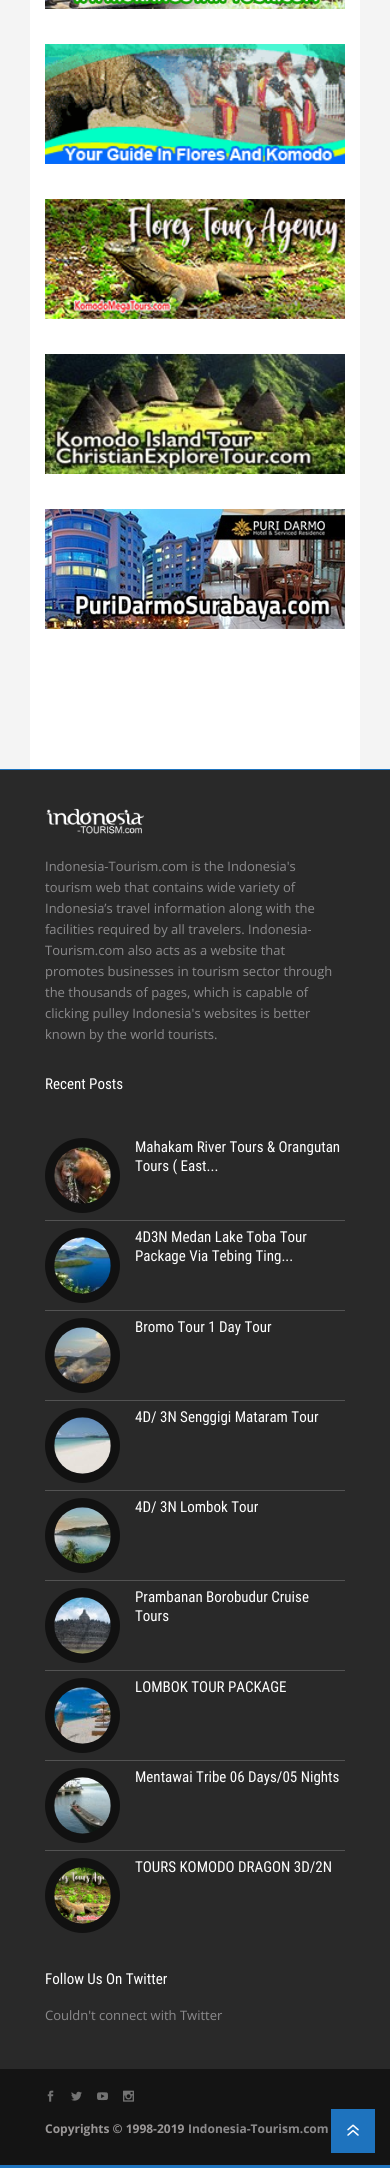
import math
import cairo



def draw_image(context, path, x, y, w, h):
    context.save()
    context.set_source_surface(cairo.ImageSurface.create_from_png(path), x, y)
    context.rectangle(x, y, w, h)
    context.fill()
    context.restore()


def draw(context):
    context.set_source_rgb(244 / 255, 244 / 255, 244 / 255)
    context.paint()
    context.set_source_rgb(1, 1, 1)
    context.rectangle(30, 0, 330, 769)
    context.fill()
    draw_image(context, "images/1.png", 45, 0, 300, 9)
    draw_image(context, "images/2.png", 45, 44, 300, 120)
    draw_image(context, "images/3.png", 45, 199, 300, 120)
    draw_image(context, "images/4.png", 45, 354, 300, 120)
    draw_image(context, "images/5.png", 45, 509, 300, 120)
    context.set_source_rgb(30 / 255, 115 / 255, 190 / 255)
    context.rectangle(0, 769, 390, 1)
    context.fill()
    context.set_source_rgb(41 / 255, 41 / 255, 41 / 255)
    context.rectangle(0, 770, 390, 1299)
    context.fill()
    draw_image(context, "images/6.png", 46, 808, 98, 26)
    context.set_source_rgb(83 / 255, 83 / 255, 83 / 255)
    context.rectangle(45, 1220, 300, 1)
    context.fill()
    context.set_source_rgb(17 / 255, 17 / 255, 17 / 255)
    context.arc(82.5, 1175.5, 35, 0, 2 * math.pi)
    context.fill_preserve()
    context.set_line_width(5)
    context.stroke()
    draw_image(context, "images/7.png", 54, 1147, 57, 57)
    context.set_source_rgb(83 / 255, 83 / 255, 83 / 255)
    context.rectangle(45, 1310, 300, 1)
    context.fill()
    context.set_source_rgb(17 / 255, 17 / 255, 17 / 255)
    context.arc(82.5, 1265.5, 35, 0, 2 * math.pi)
    context.fill_preserve()
    context.stroke()
    draw_image(context, "images/8.png", 54, 1237, 57, 57)
    context.set_source_rgb(83 / 255, 83 / 255, 83 / 255)
    context.rectangle(45, 1400, 300, 1)
    context.fill()
    context.set_source_rgb(17 / 255, 17 / 255, 17 / 255)
    context.arc(82.5, 1355.5, 35, 0, 2 * math.pi)
    context.fill_preserve()
    context.stroke()
    draw_image(context, "images/9.png", 54, 1327, 57, 57)
    context.set_source_rgb(83 / 255, 83 / 255, 83 / 255)
    context.rectangle(45, 1490, 300, 1)
    context.fill()
    context.set_source_rgb(17 / 255, 17 / 255, 17 / 255)
    context.arc(82.5, 1445.5, 35, 0, 2 * math.pi)
    context.fill_preserve()
    context.stroke()
    draw_image(context, "images/10.png", 54, 1417, 57, 57)
    context.set_source_rgb(83 / 255, 83 / 255, 83 / 255)
    context.rectangle(45, 1580, 300, 1)
    context.fill()
    context.set_source_rgb(17 / 255, 17 / 255, 17 / 255)
    context.arc(82.5, 1535.5, 35, 0, 2 * math.pi)
    context.fill_preserve()
    context.stroke()
    draw_image(context, "images/11.png", 54, 1507, 57, 57)
    context.set_source_rgb(83 / 255, 83 / 255, 83 / 255)
    context.rectangle(45, 1670, 300, 1)
    context.fill()
    context.set_source_rgb(17 / 255, 17 / 255, 17 / 255)
    context.arc(82.5, 1625.5, 35, 0, 2 * math.pi)
    context.fill_preserve()
    context.stroke()
    draw_image(context, "images/12.png", 54, 1597, 57, 57)
    context.set_source_rgb(83 / 255, 83 / 255, 83 / 255)
    context.rectangle(45, 1760, 300, 1)
    context.fill()
    context.set_source_rgb(17 / 255, 17 / 255, 17 / 255)
    context.arc(82.5, 1715.5, 35, 0, 2 * math.pi)
    context.fill_preserve()
    context.stroke()
    draw_image(context, "images/13.png", 54, 1687, 57, 57)
    context.set_source_rgb(83 / 255, 83 / 255, 83 / 255)
    context.rectangle(45, 1850, 300, 1)
    context.fill()
    context.set_source_rgb(17 / 255, 17 / 255, 17 / 255)
    context.arc(82.5, 1805.5, 35, 0, 2 * math.pi)
    context.fill_preserve()
    context.stroke()
    draw_image(context, "images/14.png", 54, 1777, 57, 57)
    context.arc(82.5, 1895.5, 35, 0, 2 * math.pi)
    context.fill_preserve()
    context.stroke()
    draw_image(context, "images/15.png", 54, 1867, 57, 57)
    context.set_source_rgb(20 / 255, 20 / 255, 20 / 255)
    context.rectangle(0, 2069, 390, 96)
    context.fill()
    context.set_source_rgb(30 / 255, 115 / 255, 190 / 255)
    context.rectangle(0, 2165, 390, 3)
    context.fill()
    draw_image(context, "images/16.png", 47, 2090, 7, 12)
    draw_image(context, "images/17.png", 71, 2091, 11, 10)
    draw_image(context, "images/18.png", 97, 2092, 11, 9)
    draw_image(context, "images/19.png", 123, 2090, 11, 12)
    context.rectangle(331, 2109, 44, 44)
    context.fill()
    draw_image(context, "images/20.png", 347, 2124, 12, 12)
    context.select_font_face("Open Sans")
    context.set_font_size(13)
    context.set_source_rgb(139 / 255, 138 / 255, 140 / 255)
    context.move_to(45, 871)
    context.show_text("Indonesia-Tourism.com is the Indonesia's")
    context.move_to(45, 892)
    context.show_text("tourism web that contains wide variety of")
    context.move_to(45, 913)
    context.show_text("Indonesia’s travel information along with the")
    context.move_to(45, 934)
    context.show_text("facilities required by all travelers. Indonesia-")
    context.move_to(45, 955)
    context.show_text("Tourism.com also acts as a website that")
    context.move_to(45, 976)
    context.show_text("promotes businesses in tourism sector through")
    context.move_to(45, 997)
    context.show_text("the thousands of pages, which is capable of")
    context.move_to(45, 1018)
    context.show_text("clicking pulley Indonesia's websites is better")
    context.move_to(45, 1039)
    context.show_text("known by the world tourists.")
    context.select_font_face("Roboto Condensed")
    context.set_font_size(15)
    context.set_source_rgb(1, 1, 1)
    context.move_to(45, 1089)
    context.show_text("Recent Posts")
    context.move_to(135, 1152)
    context.show_text("Mahakam River Tours & Orangutan")
    context.move_to(135, 1171)
    context.show_text("Tours ( East...")
    context.move_to(135, 1242)
    context.show_text("4D3N Medan Lake Toba Tour")
    context.move_to(135, 1261)
    context.show_text("Package Via Tebing Ting...")
    context.move_to(135, 1332)
    context.show_text("Bromo Tour 1 Day Tour")
    context.move_to(135, 1422)
    context.show_text("4D/ 3N Senggigi Mataram Tour")
    context.move_to(135, 1512)
    context.show_text("4D/ 3N Lombok Tour")
    context.move_to(135, 1602)
    context.show_text("Prambanan Borobudur Cruise")
    context.move_to(135, 1621)
    context.show_text("Tours")
    context.move_to(135, 1692)
    context.show_text("LOMBOK TOUR PACKAGE")
    context.move_to(135, 1782)
    context.show_text("Mentawai Tribe 06 Days/05 Nights")
    context.move_to(135, 1872)
    context.show_text("TOURS KOMODO DRAGON 3D/2N")
    context.move_to(45, 1984)
    context.show_text("Follow Us On Twitter")
    context.select_font_face("Open Sans")
    context.set_font_size(13)
    context.set_source_rgb(139 / 255, 138 / 255, 140 / 255)
    context.move_to(45, 2020)
    context.show_text("Couldn't connect with Twitter")
    context.select_font_face("Open Sans", cairo.FontSlant.NORMAL, cairo.FontWeight.BOLD)
    context.set_font_size(12)
    context.set_source_rgb(154 / 255, 151 / 255, 151 / 255)
    context.move_to(45, 2133)
    context.show_text("Copyrights © 1998-2019")
    context.set_source_rgb(139 / 255, 138 / 255, 140 / 255)
    context.move_to(188, 2133)
    context.show_text("Indonesia-Tourism.com")


surface = cairo.ImageSurface(cairo.Format.RGB24, 390, 2168)
context = cairo.Context(surface)
options = cairo.FontOptions()
options.set_hint_metrics(cairo.HintMetrics.OFF)
options.set_hint_style(cairo.HintStyle.NONE)
context.set_font_options(options)
context.set_miter_limit(4)
draw(context)
surface.write_to_png("out.png")
